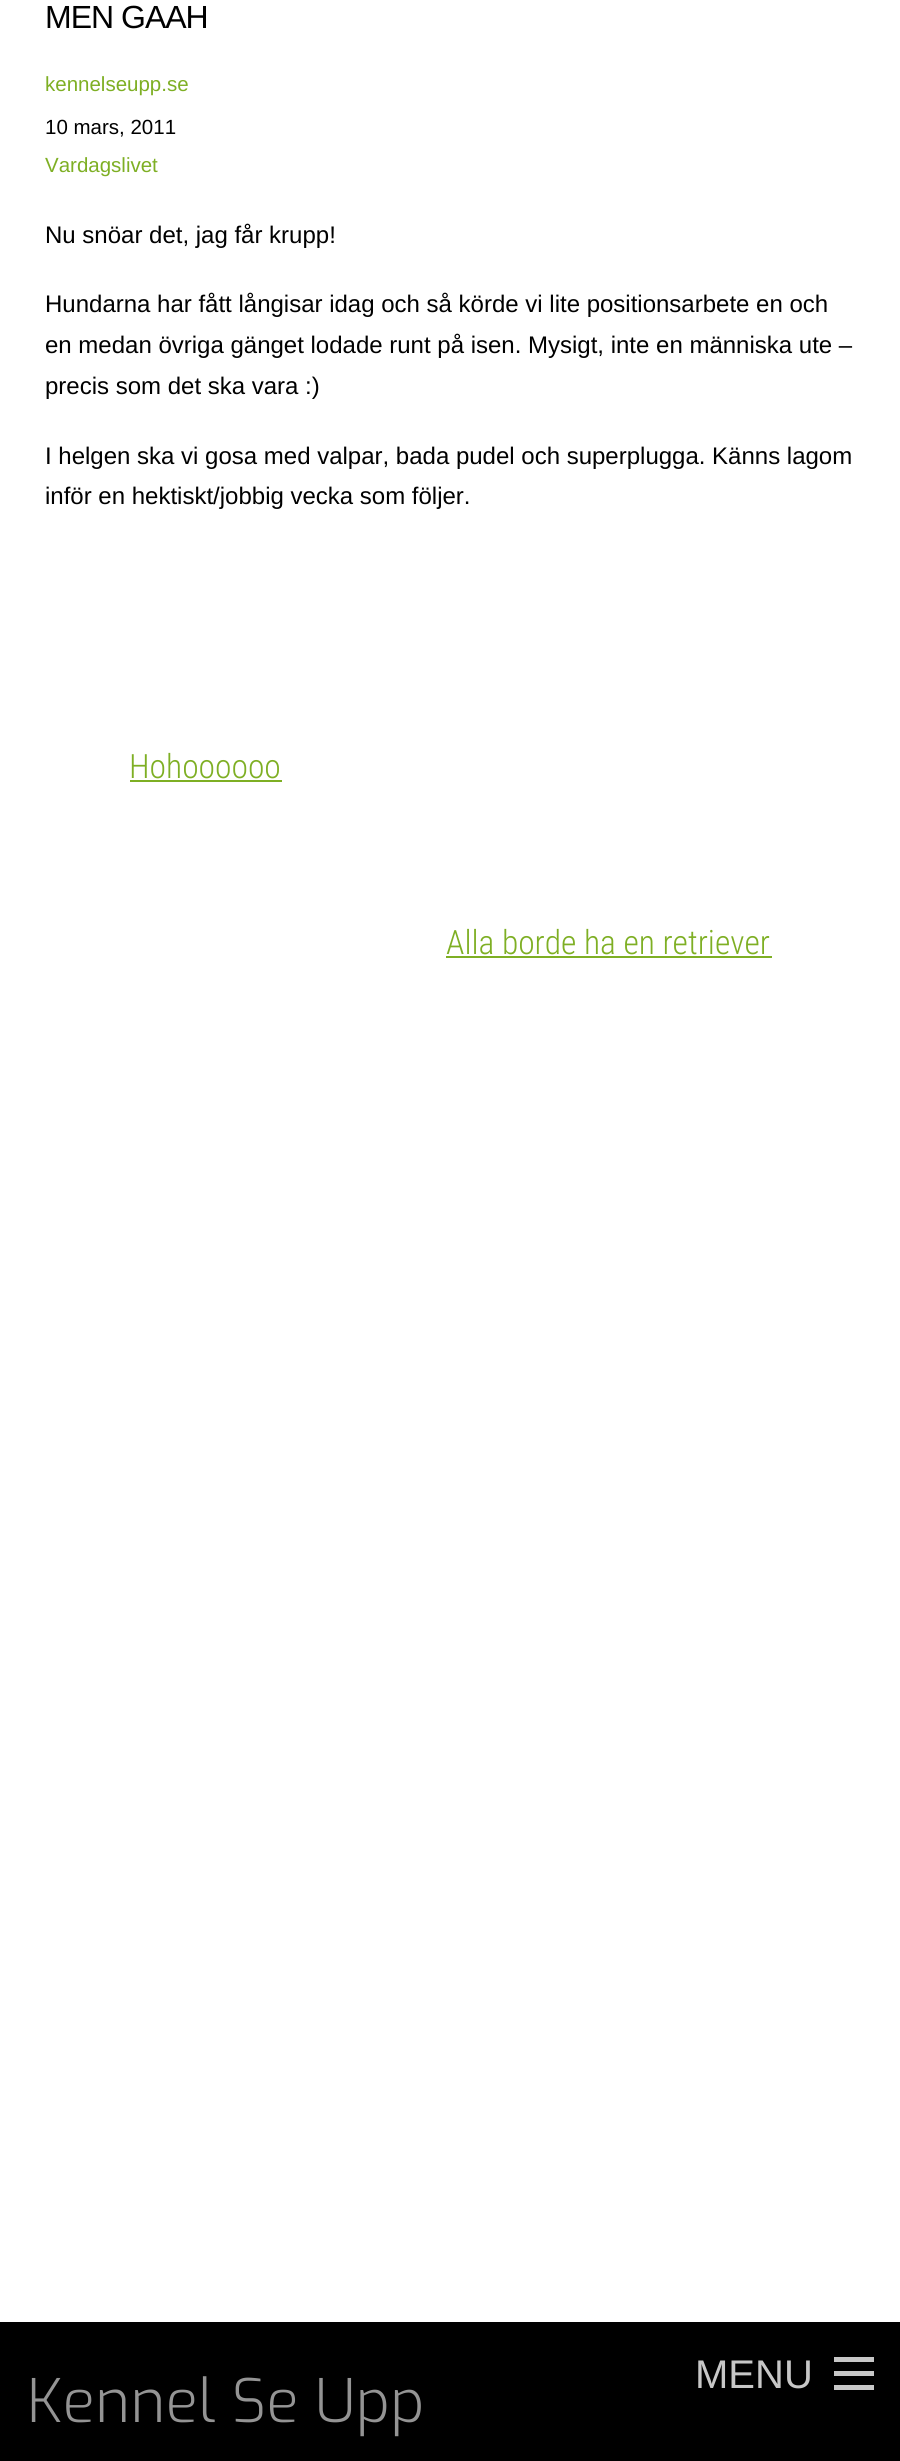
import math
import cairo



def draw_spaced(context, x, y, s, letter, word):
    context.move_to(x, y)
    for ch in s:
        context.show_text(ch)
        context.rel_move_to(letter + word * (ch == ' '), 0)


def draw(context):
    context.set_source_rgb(1, 1, 1)
    context.paint()
    context.set_source_rgb(126 / 255, 175 / 255, 36 / 255)
    context.rectangle(130, 780, 152, 2)
    context.fill()
    context.rectangle(446, 956, 326, 2)
    context.fill()
    context.set_source_rgb(0, 0, 0)
    context.rectangle(0, 2322, 900, 139)
    context.fill()
    context.set_source_rgb(199 / 255, 199 / 255, 199 / 255)
    context.new_path()
    context.move_to(834, 2357)
    context.line_to(874, 2357)
    context.line_to(874, 2362)
    context.line_to(834, 2362)
    context.close_path()
    context.move_to(834, 2371)
    context.line_to(874, 2371)
    context.line_to(874, 2376)
    context.line_to(834, 2376)
    context.close_path()
    context.move_to(834, 2385)
    context.line_to(874, 2385)
    context.line_to(874, 2390)
    context.line_to(834, 2390)
    context.close_path()
    context.fill()
    context.select_font_face("Liberation Sans")
    context.set_font_size(32)
    context.set_source_rgb(0, 0, 0)
    draw_spaced(context, 45, 28, "MEN GAAH", -1, 0)
    context.set_font_size(20.5)
    context.set_source_rgb(126 / 255, 175 / 255, 36 / 255)
    context.move_to(45, 91)
    context.show_text("kennelseupp.se")
    context.set_source_rgb(0, 0, 0)
    context.move_to(45, 134)
    context.show_text("10 mars, 2011")
    context.set_source_rgb(126 / 255, 175 / 255, 36 / 255)
    context.move_to(45, 172)
    context.show_text("Vardagslivet")
    context.set_font_size(24)
    context.set_source_rgb(0, 0, 0)
    context.move_to(45, 243)
    context.show_text("Nu snöar det, jag får krupp!")
    context.move_to(45, 312)
    context.show_text("Hundarna har fått långisar idag och så körde vi lite positionsarbete en och")
    context.move_to(45, 353)
    context.show_text("en medan övriga gänget lodade runt på isen. Mysigt, inte en människa ute –")
    context.move_to(45, 394)
    context.show_text("precis som det ska vara :)")
    context.move_to(45, 464)
    context.show_text("I helgen ska vi gosa med valpar, bada pudel och superplugga. Känns lagom")
    context.move_to(45, 504)
    context.show_text("inför en hektiskt/jobbig vecka som följer.")
    context.select_font_face("Roboto Condensed Light")
    context.set_font_size(33.5)
    context.set_source_rgb(126 / 255, 175 / 255, 36 / 255)
    context.move_to(129, 778)
    context.show_text("Hohoooooo")
    context.move_to(446, 954)
    context.show_text("Alla borde ha en retriever")
    context.select_font_face("Exo Light")
    context.set_font_size(60)
    context.set_source_rgb(148 / 255, 148 / 255, 148 / 255)
    context.move_to(27, 2422)
    context.show_text("Kennel Se Upp")
    context.select_font_face("Liberation Sans")
    context.set_font_size(40)
    context.set_source_rgb(199 / 255, 199 / 255, 199 / 255)
    context.move_to(695, 2388)
    context.show_text("MENU")


surface = cairo.ImageSurface(cairo.Format.RGB24, 900, 2461)
context = cairo.Context(surface)
options = cairo.FontOptions()
options.set_hint_metrics(cairo.HintMetrics.OFF)
options.set_hint_style(cairo.HintStyle.NONE)
context.set_font_options(options)
context.set_miter_limit(4)
draw(context)
surface.write_to_png("out.png")
